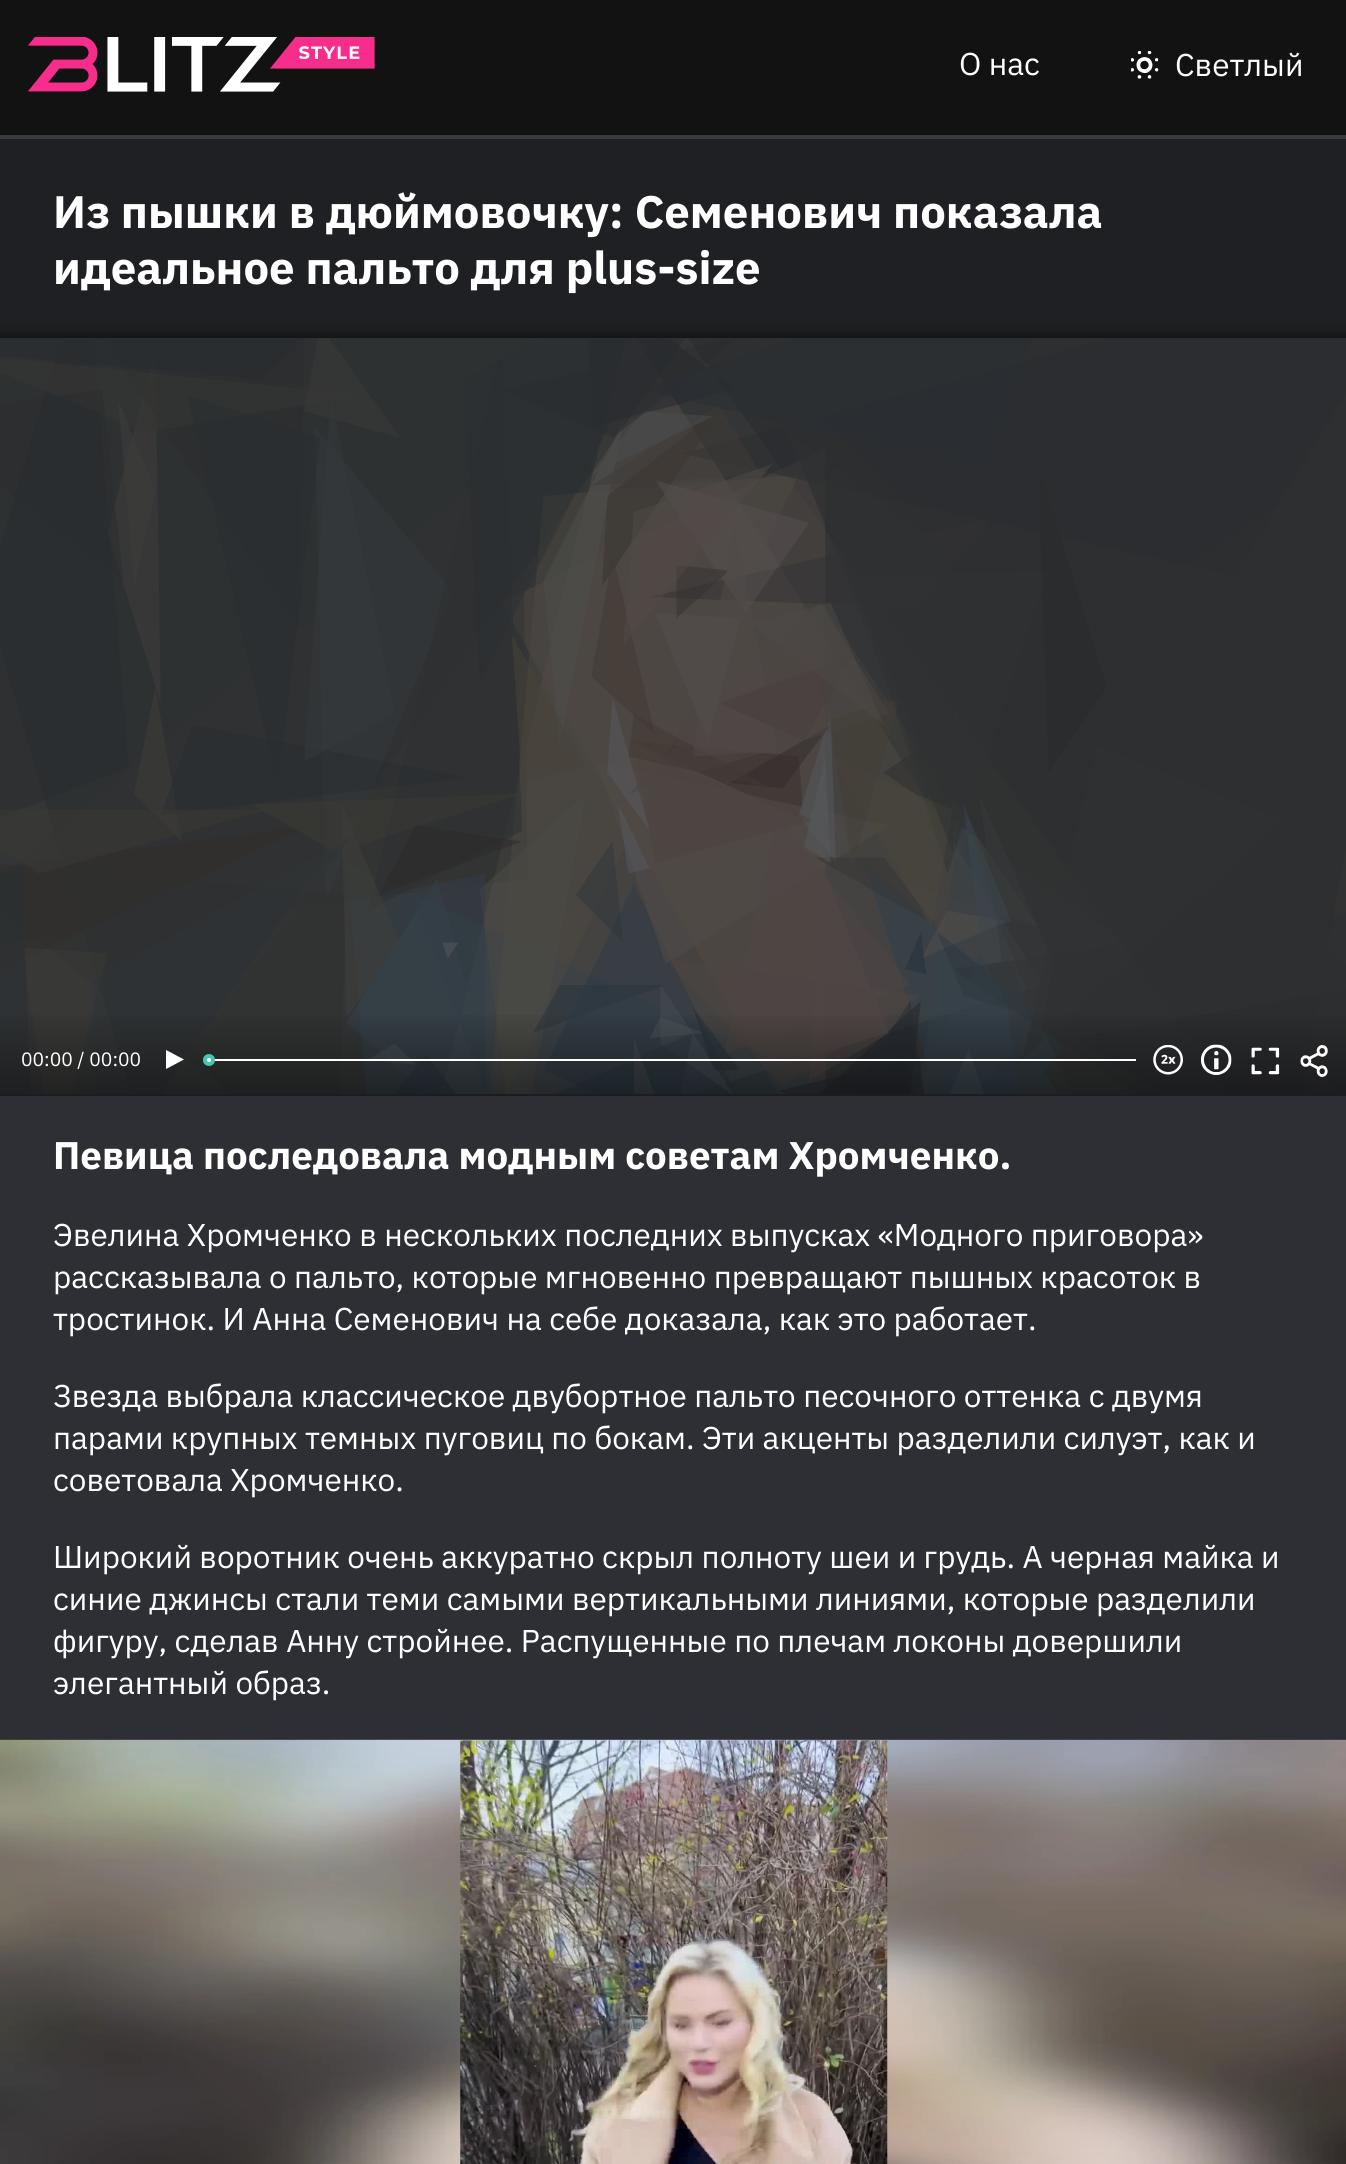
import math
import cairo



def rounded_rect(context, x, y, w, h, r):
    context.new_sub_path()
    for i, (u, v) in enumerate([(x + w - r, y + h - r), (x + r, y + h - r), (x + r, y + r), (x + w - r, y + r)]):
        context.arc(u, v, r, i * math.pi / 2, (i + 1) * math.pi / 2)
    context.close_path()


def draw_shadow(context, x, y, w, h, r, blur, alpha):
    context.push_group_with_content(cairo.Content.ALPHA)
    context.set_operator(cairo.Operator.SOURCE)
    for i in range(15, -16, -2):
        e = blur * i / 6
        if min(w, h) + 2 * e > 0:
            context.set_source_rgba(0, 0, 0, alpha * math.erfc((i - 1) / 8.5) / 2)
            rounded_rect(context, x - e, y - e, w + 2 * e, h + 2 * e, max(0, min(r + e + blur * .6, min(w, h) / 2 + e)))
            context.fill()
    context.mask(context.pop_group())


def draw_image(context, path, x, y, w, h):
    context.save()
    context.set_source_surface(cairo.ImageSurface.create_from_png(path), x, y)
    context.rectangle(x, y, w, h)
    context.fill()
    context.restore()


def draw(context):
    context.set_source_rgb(18 / 255, 18 / 255, 18 / 255)
    context.paint()
    draw_image(context, "images/1.png", 28, 37, 347, 55)
    draw_image(context, "images/2.png", 1131, 51, 28, 28)
    context.set_source_rgb(31 / 255, 32 / 255, 35 / 255)
    context.rectangle(0, 139, 1346, 199)
    context.fill()
    context.set_source_rgb(57 / 255, 59 / 255, 64 / 255)
    context.rectangle(0, 135, 1346, 4)
    context.fill()
    context.set_source_rgb(0, 0, 0)
    draw_shadow(context, 0, 338, 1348, 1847, 0, 7, 0.7)
    context.set_source_rgb(45 / 255, 47 / 255, 52 / 255)
    context.rectangle(0, 338, 1346, 1402)
    context.fill()
    draw_image(context, "images/3.png", 0, 338, 1346, 756)
    gradient = cairo.LinearGradient(674, 1008, 674, 1096)
    gradient.add_color_stop_rgba(0, 0, 0, 0, 0)
    gradient.add_color_stop_rgba(1, 0, 0, 0, 0.4)
    context.set_source(gradient)
    context.rectangle(0, 1015, 1346, 81)
    context.fill()
    draw_image(context, "images/4.png", 1201, 1044, 31, 31)
    draw_image(context, "images/5.png", 1251, 1047, 29, 28)
    draw_image(context, "images/6.png", 1300, 1045, 28, 32)
    context.set_source_rgb(1, 1, 1)
    context.new_path()
    context.move_to(184, 1059.5)
    context.line_to(166, 1050)
    context.line_to(166, 1069)
    context.close_path()
    context.fill()
    context.rectangle(208, 1059, 928, 2)
    context.fill()
    context.arc(209, 1060, 4, 0, 2 * math.pi)
    context.fill_preserve()
    context.set_source_rgb(72 / 255, 197 / 255, 182 / 255)
    context.set_line_width(4)
    context.stroke()
    draw_image(context, "images/7.png", 1153, 1045, 30, 30)
    draw_image(context, "images/8.png", 0, 1739, 1346, 425)
    context.select_font_face("IBM Plex Sans")
    context.set_font_size(31.5)
    context.set_source_rgb(1, 1, 1)
    context.move_to(959, 75)
    context.show_text("О нас")
    context.move_to(1175, 76)
    context.show_text("Светлый")
    context.select_font_face("IBM Plex Sans", cairo.FontSlant.NORMAL, cairo.FontWeight.BOLD)
    context.set_font_size(45.5)
    context.move_to(53, 228)
    context.show_text("Из пышки в дюймовочку: Семенович показала")
    context.move_to(53, 284)
    context.show_text("идеальное пальто для plus-size")
    context.select_font_face("IBM Plex Sans")
    context.set_font_size(19.25)
    context.move_to(21, 1066)
    context.show_text("00:00 / 00:00")
    context.select_font_face("IBM Plex Sans", cairo.FontSlant.NORMAL, cairo.FontWeight.BOLD)
    context.set_font_size(38.5)
    context.move_to(53, 1169)
    context.show_text("Певица последовала модным советам Хромченко.")
    context.select_font_face("IBM Plex Sans")
    context.set_font_size(31.5)
    context.move_to(53, 1246)
    context.show_text("Эвелина Хромченко в нескольких последних выпусках «Модного приговора»")
    context.move_to(53, 1288)
    context.show_text("рассказывала о пальто, которые мгновенно превращают пышных красоток в")
    context.move_to(53, 1330)
    context.show_text("тростинок. И Анна Семенович на себе доказала, как это работает.")
    context.move_to(53, 1407)
    context.show_text("Звезда выбрала классическое двубортное пальто песочного оттенка с двумя")
    context.move_to(53, 1449)
    context.show_text("парами крупных темных пуговиц по бокам. Эти акценты разделили силуэт, как и")
    context.move_to(53, 1491)
    context.show_text("советовала Хромченко.")
    context.move_to(53, 1568)
    context.show_text("Широкий воротник очень аккуратно скрыл полноту шеи и грудь. А черная майка и")
    context.move_to(53, 1610)
    context.show_text("синие джинсы стали теми самыми вертикальными линиями, которые разделили")
    context.move_to(53, 1652)
    context.show_text("фигуру, сделав Анну стройнее. Распущенные по плечам локоны довершили")
    context.move_to(53, 1694)
    context.show_text("элегантный образ.")


surface = cairo.ImageSurface(cairo.Format.RGB24, 1346, 2164)
context = cairo.Context(surface)
options = cairo.FontOptions()
options.set_hint_metrics(cairo.HintMetrics.OFF)
options.set_hint_style(cairo.HintStyle.NONE)
context.set_font_options(options)
context.set_miter_limit(4)
draw(context)
surface.write_to_png("out.png")
